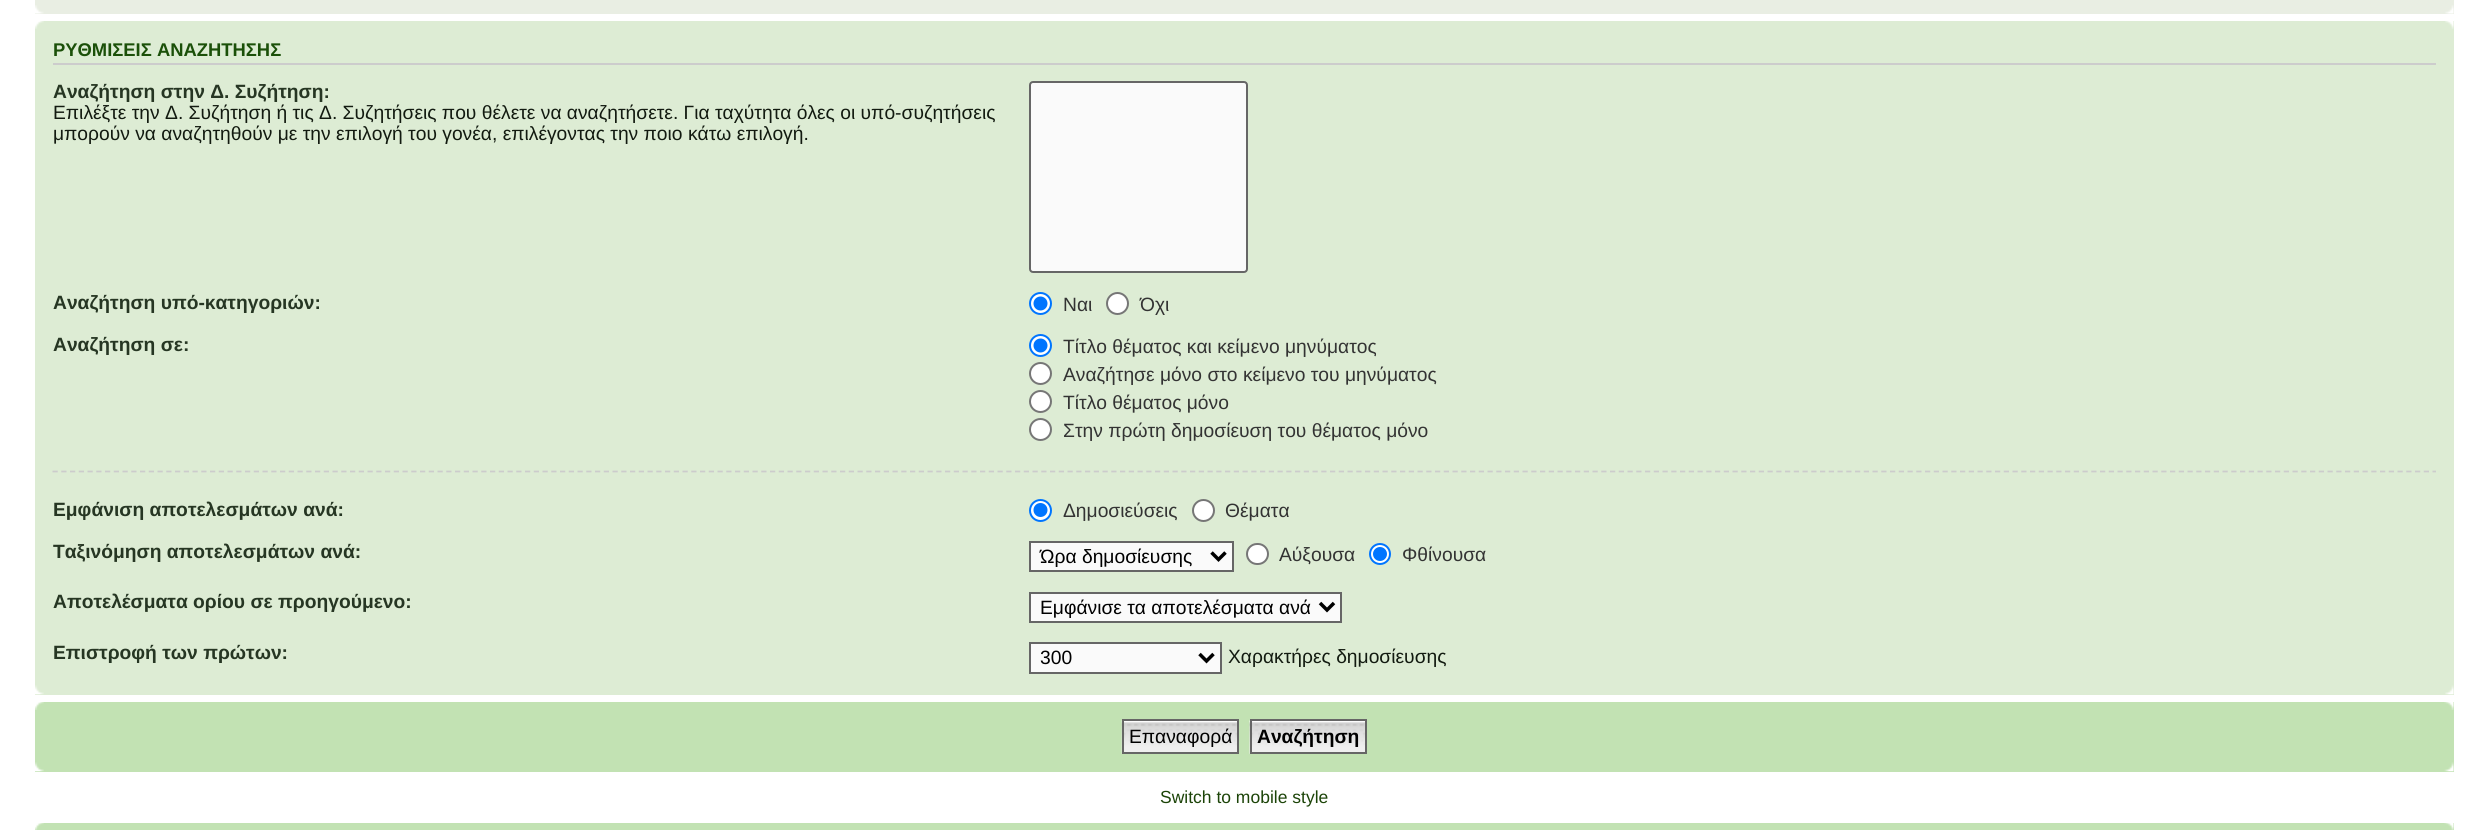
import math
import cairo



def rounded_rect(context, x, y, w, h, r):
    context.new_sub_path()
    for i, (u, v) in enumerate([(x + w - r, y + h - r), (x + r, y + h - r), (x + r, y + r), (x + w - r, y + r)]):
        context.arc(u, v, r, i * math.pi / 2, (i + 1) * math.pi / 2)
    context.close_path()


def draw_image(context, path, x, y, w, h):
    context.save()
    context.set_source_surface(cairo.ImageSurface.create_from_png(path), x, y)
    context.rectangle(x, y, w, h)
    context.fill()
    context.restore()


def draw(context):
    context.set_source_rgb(1, 1, 1)
    context.paint()
    context.set_source_rgb(233 / 255, 238 / 255, 227 / 255)
    context.rectangle(35, 0, 2419, 14)
    context.fill()
    draw_image(context, "images/1.png", 35, 5, 9, 9)
    draw_image(context, "images/2.png", 2445, 5, 9, 9)
    context.set_source_rgb(221 / 255, 236 / 255, 212 / 255)
    context.rectangle(35, 21, 2419, 674)
    context.fill()
    draw_image(context, "images/3.png", 35, 21, 9, 8)
    draw_image(context, "images/4.png", 2445, 21, 9, 8)
    context.set_source_rgb(204 / 255, 204 / 255, 204 / 255)
    context.rectangle(53, 63, 2383, 2)
    context.fill()
    context.set_source_rgb(250 / 255, 250 / 255, 250 / 255)
    rounded_rect(context, 1030, 82, 217, 190, 3)
    context.fill_preserve()
    context.set_source_rgb(102 / 255, 102 / 255, 102 / 255)
    context.stroke()
    context.set_source_rgb(1, 1, 1)
    context.arc(1040.5, 303.5, 10.5, 0, 2 * math.pi)
    context.fill_preserve()
    context.set_source_rgb(0, 117 / 255, 1)
    context.stroke()
    context.arc(1040.5, 303.5, 7, 0, 2 * math.pi)
    context.fill()
    context.set_source_rgb(1, 1, 1)
    context.arc(1117.5, 303.5, 10.5, 0, 2 * math.pi)
    context.fill_preserve()
    context.set_source_rgb(118 / 255, 118 / 255, 118 / 255)
    context.stroke()
    context.set_source_rgb(1, 1, 1)
    context.arc(1040.5, 345.5, 10.5, 0, 2 * math.pi)
    context.fill_preserve()
    context.set_source_rgb(0, 117 / 255, 1)
    context.stroke()
    context.arc(1040.5, 345.5, 7, 0, 2 * math.pi)
    context.fill()
    context.set_source_rgb(1, 1, 1)
    context.arc(1040.5, 373.5, 10.5, 0, 2 * math.pi)
    context.fill_preserve()
    context.set_source_rgb(118 / 255, 118 / 255, 118 / 255)
    context.stroke()
    context.set_source_rgb(1, 1, 1)
    context.arc(1040.5, 401.5, 10.5, 0, 2 * math.pi)
    context.fill_preserve()
    context.set_source_rgb(118 / 255, 118 / 255, 118 / 255)
    context.stroke()
    context.set_source_rgb(1, 1, 1)
    context.arc(1040.5, 429.5, 10.5, 0, 2 * math.pi)
    context.fill_preserve()
    context.set_source_rgb(118 / 255, 118 / 255, 118 / 255)
    context.stroke()
    context.new_path()
    context.move_to(52.5, 471.5)
    context.line_to(2436, 471.5)
    context.set_source_rgb(204 / 255, 204 / 255, 204 / 255)
    context.set_line_width(1.8)
    context.set_dash([5.25, 3.5])
    context.stroke()
    context.set_source_rgb(1, 1, 1)
    context.arc(1040.5, 510.5, 10.5, 0, 2 * math.pi)
    context.fill_preserve()
    context.set_source_rgb(0, 117 / 255, 1)
    context.set_line_width(2)
    context.set_dash([])
    context.stroke()
    context.arc(1040.5, 510, 7, 0, 2 * math.pi)
    context.fill()
    context.set_source_rgb(1, 1, 1)
    context.arc(1203.5, 510.5, 10.5, 0, 2 * math.pi)
    context.fill_preserve()
    context.set_source_rgb(118 / 255, 118 / 255, 118 / 255)
    context.stroke()
    context.set_source_rgb(250 / 255, 250 / 255, 250 / 255)
    context.rectangle(1030, 542, 203, 29)
    context.fill_preserve()
    context.set_source_rgb(102 / 255, 102 / 255, 102 / 255)
    context.stroke()
    context.new_path()
    context.move_to(1211.5, 552.5)
    context.line_to(1218.5, 559.5)
    context.line_to(1225.5, 552.5)
    context.set_source_rgb(0, 0, 0)
    context.set_line_width(3.5)
    context.stroke()
    context.set_source_rgb(1, 1, 1)
    rounded_rect(context, 1247, 544, 21, 20, 10)
    context.fill_preserve()
    context.set_source_rgb(118 / 255, 118 / 255, 118 / 255)
    context.set_line_width(2)
    context.stroke()
    context.set_source_rgb(1, 1, 1)
    context.arc(1380, 554, 10, 0, 2 * math.pi)
    context.fill_preserve()
    context.set_source_rgb(0, 117 / 255, 1)
    context.stroke()
    context.arc(1380, 554, 7, 0, 2 * math.pi)
    context.fill()
    context.set_source_rgb(250 / 255, 250 / 255, 250 / 255)
    context.rectangle(1030, 593, 311, 29)
    context.fill_preserve()
    context.set_source_rgb(102 / 255, 102 / 255, 102 / 255)
    context.stroke()
    context.new_path()
    context.move_to(1320, 603)
    context.line_to(1327, 610)
    context.line_to(1334, 603)
    context.set_source_rgb(0, 0, 0)
    context.set_line_width(3.5)
    context.stroke()
    context.set_source_rgb(250 / 255, 250 / 255, 250 / 255)
    context.rectangle(1030, 643, 191, 30)
    context.fill_preserve()
    context.set_source_rgb(102 / 255, 102 / 255, 102 / 255)
    context.set_line_width(2)
    context.stroke()
    context.new_path()
    context.move_to(1199.5, 654)
    context.line_to(1206.5, 661)
    context.line_to(1213.5, 654)
    context.set_source_rgb(0, 0, 0)
    context.set_line_width(3.5)
    context.stroke()
    draw_image(context, "images/5.png", 35, 685, 9, 10)
    draw_image(context, "images/6.png", 2445, 685, 9, 10)
    context.set_source_rgb(194 / 255, 226 / 255, 179 / 255)
    context.rectangle(35, 702, 2419, 70)
    context.fill()
    draw_image(context, "images/7.png", 35, 702, 9, 8)
    draw_image(context, "images/8.png", 2444, 702, 10, 8)
    draw_image(context, "images/9.png", 1121, 720, 116, 34)
    context.rectangle(1123, 720, 115, 33)
    context.set_source_rgb(102 / 255, 102 / 255, 102 / 255)
    context.set_line_width(2)
    context.stroke()
    draw_image(context, "images/10.png", 1249, 720, 116, 34)
    context.rectangle(1251, 720, 115, 33)
    context.stroke()
    draw_image(context, "images/11.png", 35, 762, 9, 10)
    draw_image(context, "images/12.png", 2444, 762, 10, 10)
    context.set_source_rgb(194 / 255, 226 / 255, 179 / 255)
    context.rectangle(35, 823, 2419, 7)
    context.fill()
    draw_image(context, "images/13.png", 35, 823, 9, 7)
    draw_image(context, "images/14.png", 2444, 823, 10, 7)
    context.select_font_face("Liberation Sans", cairo.FontSlant.NORMAL, cairo.FontWeight.BOLD)
    context.set_font_size(18.4)
    context.set_source_rgb(27 / 255, 80 / 255, 9 / 255)
    context.move_to(53, 56)
    context.show_text("ΡΥΘΜΙΣΕΙΣ ΑΝΑΖΗΤΗΣΗΣ")
    context.set_font_size(19.25)
    context.set_source_rgb(38 / 255, 54 / 255, 35 / 255)
    context.move_to(53, 98)
    context.show_text("Αναζήτηση στην Δ. Συζήτηση:")
    context.select_font_face("Liberation Sans")
    context.set_source_rgb(18 / 255, 26 / 255, 16 / 255)
    context.move_to(53, 119)
    context.show_text("Επιλέξτε την Δ. Συζήτηση ή τις Δ. Συζητήσεις που θέλετε να αναζητήσετε. Για ταχύτητα όλες οι υπό-συζητήσεις")
    context.move_to(53, 140)
    context.show_text("μπορούν να αναζητηθούν με την επιλογή του γονέα, επιλέγοντας την ποιο κάτω επιλογή.")
    context.select_font_face("Liberation Sans", cairo.FontSlant.NORMAL, cairo.FontWeight.BOLD)
    context.set_source_rgb(38 / 255, 54 / 255, 35 / 255)
    context.move_to(53, 309)
    context.show_text("Αναζήτηση υπό-κατηγοριών:")
    context.select_font_face("Liberation Sans")
    context.set_source_rgb(51 / 255, 51 / 255, 51 / 255)
    context.move_to(1063, 311)
    context.show_text("Ναι")
    context.move_to(1140, 311)
    context.show_text("Όχι")
    context.select_font_face("Liberation Sans", cairo.FontSlant.NORMAL, cairo.FontWeight.BOLD)
    context.set_source_rgb(38 / 255, 54 / 255, 35 / 255)
    context.move_to(53, 351)
    context.show_text("Αναζήτηση σε:")
    context.select_font_face("Liberation Sans")
    context.set_source_rgb(51 / 255, 51 / 255, 51 / 255)
    context.move_to(1063, 353)
    context.show_text("Τίτλο θέματος και κείμενο μηνύματος")
    context.move_to(1063, 381)
    context.show_text("Αναζήτησε μόνο στο κείμενο του μηνύματος")
    context.move_to(1063, 409)
    context.show_text("Τίτλο θέματος μόνο")
    context.move_to(1063, 437)
    context.show_text("Στην πρώτη δημοσίευση του θέματος μόνο")
    context.select_font_face("Liberation Sans", cairo.FontSlant.NORMAL, cairo.FontWeight.BOLD)
    context.set_source_rgb(38 / 255, 54 / 255, 35 / 255)
    context.move_to(53, 516)
    context.show_text("Εμφάνιση αποτελεσμάτων ανά:")
    context.select_font_face("Liberation Sans")
    context.set_source_rgb(51 / 255, 51 / 255, 51 / 255)
    context.move_to(1063, 517)
    context.show_text("Δημοσιεύσεις")
    context.move_to(1225, 517)
    context.show_text("Θέματα")
    context.save()
    context.rectangle(53, 534, 2383, 51)
    context.clip()
    context.select_font_face("Liberation Sans", cairo.FontSlant.NORMAL, cairo.FontWeight.BOLD)
    context.set_source_rgb(38 / 255, 54 / 255, 35 / 255)
    context.move_to(53, 558)
    context.show_text("Ταξινόμηση αποτελεσμάτων ανά:")
    context.restore()
    context.set_source_rgb(0, 0, 0)
    context.move_to(1040, 563)
    context.show_text("Ώρα δημοσίευσης")
    context.set_source_rgb(51 / 255, 51 / 255, 51 / 255)
    context.move_to(1279, 561)
    context.show_text("Αύξουσα")
    context.move_to(1402, 561)
    context.show_text("Φθίνουσα")
    context.select_font_face("Liberation Sans", cairo.FontSlant.NORMAL, cairo.FontWeight.BOLD)
    context.set_source_rgb(38 / 255, 54 / 255, 35 / 255)
    context.move_to(53, 608)
    context.show_text("Αποτελέσματα ορίου σε προηγούμενο:")
    context.select_font_face("Liberation Sans")
    context.set_source_rgb(0, 0, 0)
    context.move_to(1040, 614)
    context.show_text("Εμφάνισε τα αποτελέσματα ανά")
    context.select_font_face("Liberation Sans", cairo.FontSlant.NORMAL, cairo.FontWeight.BOLD)
    context.set_source_rgb(38 / 255, 54 / 255, 35 / 255)
    context.move_to(53, 659)
    context.show_text("Επιστροφή των πρώτων:")
    context.select_font_face("Liberation Sans")
    context.set_source_rgb(0, 0, 0)
    context.move_to(1040, 664)
    context.show_text("300")
    context.set_source_rgb(18 / 255, 26 / 255, 16 / 255)
    context.move_to(1228, 663)
    context.show_text("Χαρακτήρες δημοσίευσης")
    context.set_source_rgb(0, 0, 0)
    context.move_to(1129, 743)
    context.show_text("Επαναφορά")
    context.select_font_face("Liberation Sans", cairo.FontSlant.NORMAL, cairo.FontWeight.BOLD)
    context.move_to(1257, 743)
    context.show_text("Αναζήτηση")
    context.select_font_face("Liberation Sans")
    context.set_font_size(17.5)
    context.set_source_rgb(28 / 255, 68 / 255, 8 / 255)
    context.move_to(1160, 803)
    context.show_text("Switch to mobile style")


surface = cairo.ImageSurface(cairo.Format.RGB24, 2487, 830)
context = cairo.Context(surface)
options = cairo.FontOptions()
options.set_hint_metrics(cairo.HintMetrics.OFF)
options.set_hint_style(cairo.HintStyle.NONE)
context.set_font_options(options)
context.set_miter_limit(4)
draw(context)
surface.write_to_png("out.png")
